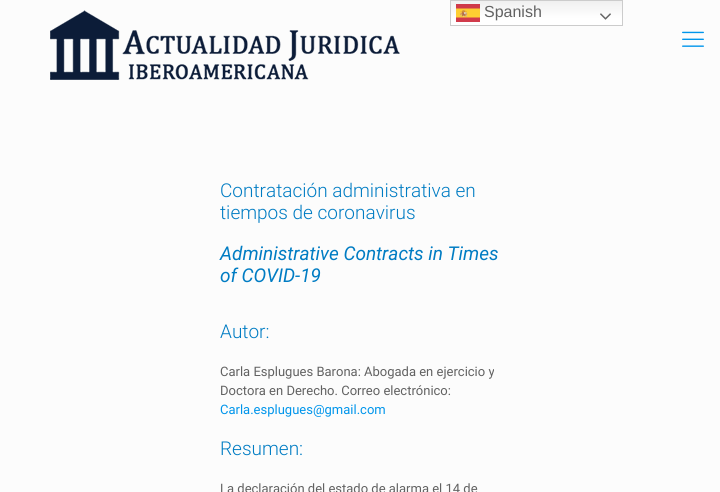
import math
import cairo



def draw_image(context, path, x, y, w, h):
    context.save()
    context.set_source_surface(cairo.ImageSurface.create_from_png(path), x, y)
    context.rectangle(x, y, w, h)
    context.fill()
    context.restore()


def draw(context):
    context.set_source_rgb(252 / 255, 252 / 255, 252 / 255)
    context.paint()
    draw_image(context, "images/1.png", 50, 10, 350, 70)
    gradient = cairo.LinearGradient(537, 0, 537, 26)
    gradient.add_color_stop_rgba(0, 239 / 255, 239 / 255, 239 / 255, 1)
    gradient.add_color_stop_rgba(0.7, 1, 1, 1, 1)
    context.set_source(gradient)
    context.rectangle(451, 1, 171, 24)
    context.fill()
    context.rectangle(450.5, 0.5, 172, 25)
    context.set_source_rgb(204 / 255, 204 / 255, 204 / 255)
    context.set_line_width(1)
    context.stroke()
    draw_image(context, "images/2.png", 456, 4, 24, 18)
    draw_image(context, "images/3.png", 600, 13, 11, 7)
    draw_image(context, "images/4.png", 682, 31, 22, 16)
    context.select_font_face("Liberation Sans")
    context.set_font_size(16)
    context.set_source_rgb(98 / 255, 98 / 255, 98 / 255)
    context.move_to(484, 17)
    context.show_text("Spanish")
    context.select_font_face("Roboto Light")
    context.set_font_size(19)
    context.set_source_rgb(0, 124 / 255, 195 / 255)
    context.move_to(220, 197)
    context.show_text("Contratación administrativa en")
    context.move_to(220, 219)
    context.show_text("tiempos de coronavirus")
    context.select_font_face("Roboto", cairo.FontSlant.ITALIC)
    context.move_to(220, 260)
    context.show_text("Administrative Contracts in Times")
    context.move_to(220, 282)
    context.show_text("of COVID-19")
    context.select_font_face("Roboto Light")
    context.move_to(220, 338)
    context.show_text("Autor:")
    context.select_font_face("Roboto")
    context.set_font_size(13)
    context.set_source_rgb(98 / 255, 98 / 255, 98 / 255)
    context.move_to(220, 376)
    context.show_text("Carla Esplugues Barona: Abogada en ejercicio y")
    context.move_to(220, 395)
    context.show_text("Doctora en Derecho. Correo electrónico:")
    context.set_source_rgb(0, 149 / 255, 235 / 255)
    context.move_to(220, 414)
    context.show_text("Carla.esplugues@gmail.com")
    context.select_font_face("Roboto Light")
    context.set_font_size(19)
    context.set_source_rgb(0, 124 / 255, 195 / 255)
    context.move_to(220, 455)
    context.show_text("Resumen:")
    context.select_font_face("Roboto")
    context.set_font_size(13)
    context.set_source_rgb(98 / 255, 98 / 255, 98 / 255)
    context.move_to(220, 493)
    context.show_text("La declaración del estado de alarma el 14 de")


surface = cairo.ImageSurface(cairo.Format.RGB24, 720, 492)
context = cairo.Context(surface)
options = cairo.FontOptions()
options.set_hint_metrics(cairo.HintMetrics.OFF)
options.set_hint_style(cairo.HintStyle.NONE)
context.set_font_options(options)
context.set_miter_limit(4)
draw(context)
surface.write_to_png("out.png")
